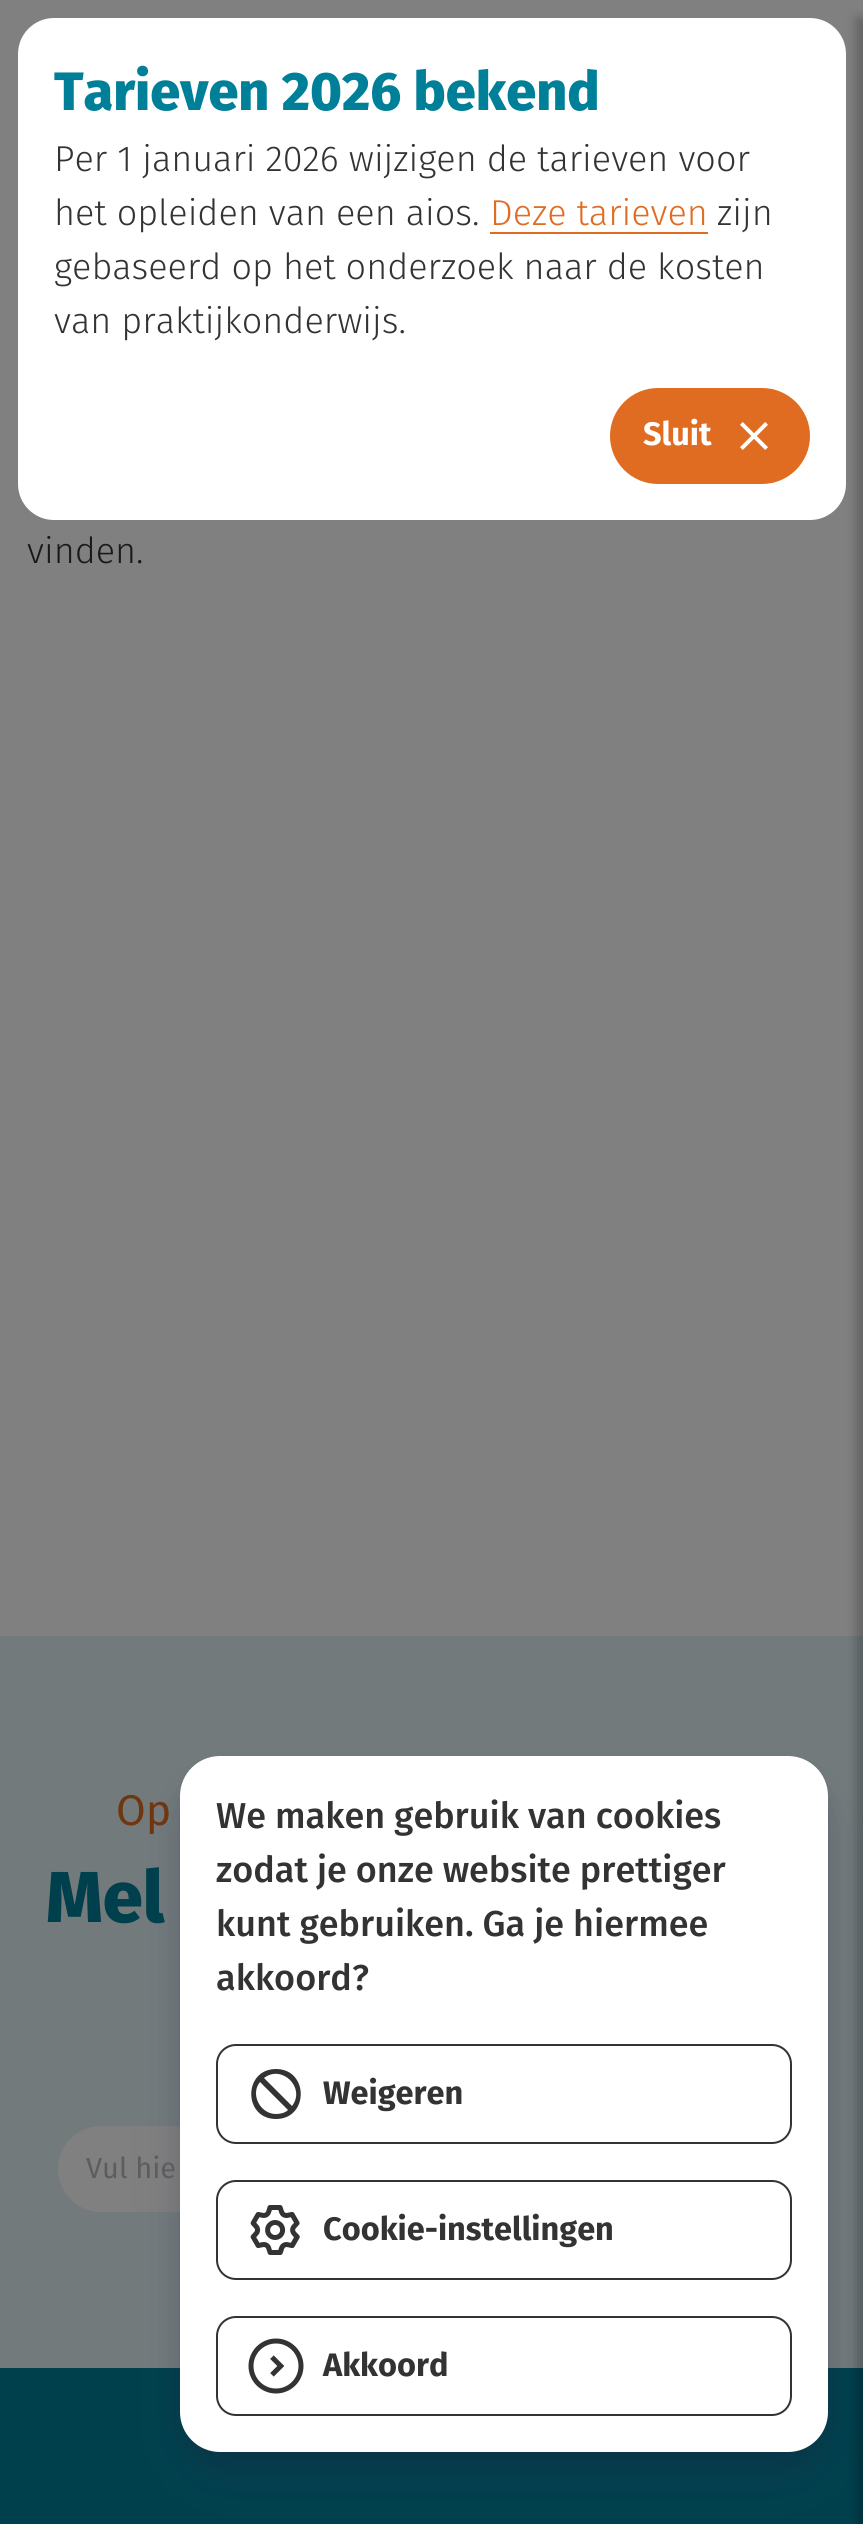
import math
import cairo



def rounded_rect(context, x, y, w, h, r):
    context.new_sub_path()
    for i, (u, v) in enumerate([(x + w - r, y + h - r), (x + r, y + h - r), (x + r, y + r), (x + w - r, y + r)]):
        context.arc(u, v, r, i * math.pi / 2, (i + 1) * math.pi / 2)
    context.close_path()


def draw_shadow(context, x, y, w, h, r, blur, alpha):
    context.push_group_with_content(cairo.Content.ALPHA)
    context.set_operator(cairo.Operator.SOURCE)
    for i in range(15, -16, -2):
        e = blur * i / 6
        if min(w, h) + 2 * e > 0:
            context.set_source_rgba(0, 0, 0, alpha * math.erfc((i - 1) / 8.5) / 2)
            rounded_rect(context, x - e, y - e, w + 2 * e, h + 2 * e, max(0, min(r + e + blur * .6, min(w, h) / 2 + e)))
            context.fill()
    context.mask(context.pop_group())


def draw_image(context, path, x, y, w, h):
    context.save()
    context.set_source_surface(cairo.ImageSurface.create_from_png(path), x, y)
    context.rectangle(x, y, w, h)
    context.fill()
    context.restore()


def draw(context):
    context.set_source_rgb(128 / 255, 128 / 255, 128 / 255)
    context.paint()
    context.set_source_rgb(114 / 255, 122 / 255, 124 / 255)
    context.rectangle(0, 1636, 863, 732)
    context.fill()
    context.set_source_rgb(0, 64 / 255, 77 / 255)
    context.rectangle(0, 2368, 863, 156)
    context.fill()
    context.set_source_rgb(0, 0, 0)
    draw_shadow(context, 856, 18, 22, 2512, 0, 5, 0.23)
    context.set_source_rgb(1, 1, 1)
    rounded_rect(context, 18, 18, 828, 502, 36)
    context.fill()
    context.set_source_rgb(223 / 255, 108 / 255, 32 / 255)
    context.rectangle(490, 232, 218, 2)
    context.fill()
    rounded_rect(context, 610, 388, 200, 96, 48)
    context.fill()
    draw_image(context, "images/1.png", 740, 422, 28, 28)
    context.set_source_rgb(128 / 255, 128 / 255, 128 / 255)
    rounded_rect(context, 58, 2126, 748, 86, 43)
    context.fill()
    context.set_source_rgb(0, 0, 0)
    draw_shadow(context, 196, 1788, 616, 664, 24, 16, 0.3)
    context.set_source_rgb(50 / 255, 50 / 255, 93 / 255)
    draw_shadow(context, 190, 1792, 628, 676, 30, 27, 0.25)
    context.set_source_rgb(1, 1, 1)
    rounded_rect(context, 180, 1756, 648, 696, 40)
    context.fill()
    rounded_rect(context, 217, 2045, 574, 98, 19)
    context.set_source_rgb(51 / 255, 51 / 255, 51 / 255)
    context.stroke()
    context.new_path()
    context.move_to(276, 2069)
    context.curve_to(243, 2069, 243, 2119, 276, 2119)
    context.curve_to(309, 2119, 309, 2069, 276, 2069)
    context.move_to(276, 2114)
    context.curve_to(260, 2114, 250, 2094, 260, 2082)
    context.line_to(288, 2110)
    context.curve_to(285, 2113, 280, 2114, 276, 2114)
    context.move_to(292, 2106)
    context.line_to(264, 2078)
    context.curve_to(282, 2064, 306, 2088, 292, 2106)
    context.fill()
    rounded_rect(context, 217, 2181, 574, 98, 19)
    context.stroke()
    draw_image(context, "images/2.png", 250, 2205, 50, 50)
    rounded_rect(context, 217, 2317, 574, 98, 19)
    context.stroke()
    draw_image(context, "images/3.png", 248, 2338, 56, 56)
    context.select_font_face("Fira Sans ExtraBold")
    context.set_font_size(54)
    context.set_source_rgb(0, 127 / 255, 153 / 255)
    context.move_to(54, 110)
    context.show_text("Tarieven 2026 bekend")
    context.select_font_face("Fira Sans Light")
    context.set_font_size(36)
    context.set_source_rgb(51 / 255, 51 / 255, 51 / 255)
    context.move_to(54, 171)
    context.show_text("Per 1 januari 2026 wijzigen de tarieven voor")
    context.move_to(54, 225)
    context.show_text("het opleiden van een aios.")
    context.set_source_rgb(223 / 255, 108 / 255, 32 / 255)
    context.move_to(490, 225)
    context.show_text("Deze tarieven")
    context.set_source_rgb(51 / 255, 51 / 255, 51 / 255)
    context.move_to(717, 225)
    context.show_text("zijn")
    context.move_to(54, 279)
    context.show_text("gebaseerd op het onderzoek naar de kosten")
    context.move_to(54, 333)
    context.show_text("van praktijkonderwijs.")
    context.select_font_face("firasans", cairo.FontSlant.NORMAL, cairo.FontWeight.BOLD)
    context.set_font_size(32.5)
    context.set_source_rgb(1, 1, 1)
    context.move_to(643, 445)
    context.show_text("Sluit")
    context.select_font_face("Fira Sans Light")
    context.set_font_size(36)
    context.set_source_rgb(26 / 255, 26 / 255, 26 / 255)
    context.move_to(27, 563)
    context.show_text("vinden.")
    context.select_font_face("firasans")
    context.set_font_size(43)
    context.set_source_rgb(112 / 255, 54 / 255, 16 / 255)
    context.move_to(116, 1825)
    context.show_text("Op")
    context.select_font_face("Fira Sans ExtraBold")
    context.set_font_size(72)
    context.set_source_rgb(0, 64 / 255, 77 / 255)
    context.move_to(46, 1922)
    context.show_text("Mel")
    context.select_font_face("firasans")
    context.set_font_size(29)
    context.set_source_rgb(93 / 255, 93 / 255, 93 / 255)
    context.move_to(86, 2178)
    context.show_text("Vul hie")
    context.select_font_face("Fira Sans Medium")
    context.set_font_size(36)
    context.set_source_rgb(51 / 255, 51 / 255, 51 / 255)
    context.move_to(216, 1828)
    context.show_text("We maken gebruik van cookies")
    context.move_to(216, 1882)
    context.show_text("zodat je onze website prettiger")
    context.move_to(216, 1936)
    context.show_text("kunt gebruiken. Ga je hiermee")
    context.move_to(216, 1990)
    context.show_text("akkoord?")
    context.select_font_face("firasans", cairo.FontSlant.NORMAL, cairo.FontWeight.BOLD)
    context.set_font_size(32.5)
    context.move_to(323, 2104)
    context.show_text("Weigeren")
    context.move_to(323, 2240)
    context.show_text("Cookie-instellingen")
    context.move_to(323, 2376)
    context.show_text("Akkoord")


surface = cairo.ImageSurface(cairo.Format.RGB24, 863, 2524)
context = cairo.Context(surface)
options = cairo.FontOptions()
options.set_hint_metrics(cairo.HintMetrics.OFF)
options.set_hint_style(cairo.HintStyle.NONE)
context.set_font_options(options)
context.set_miter_limit(4)
draw(context)
surface.write_to_png("out.png")
